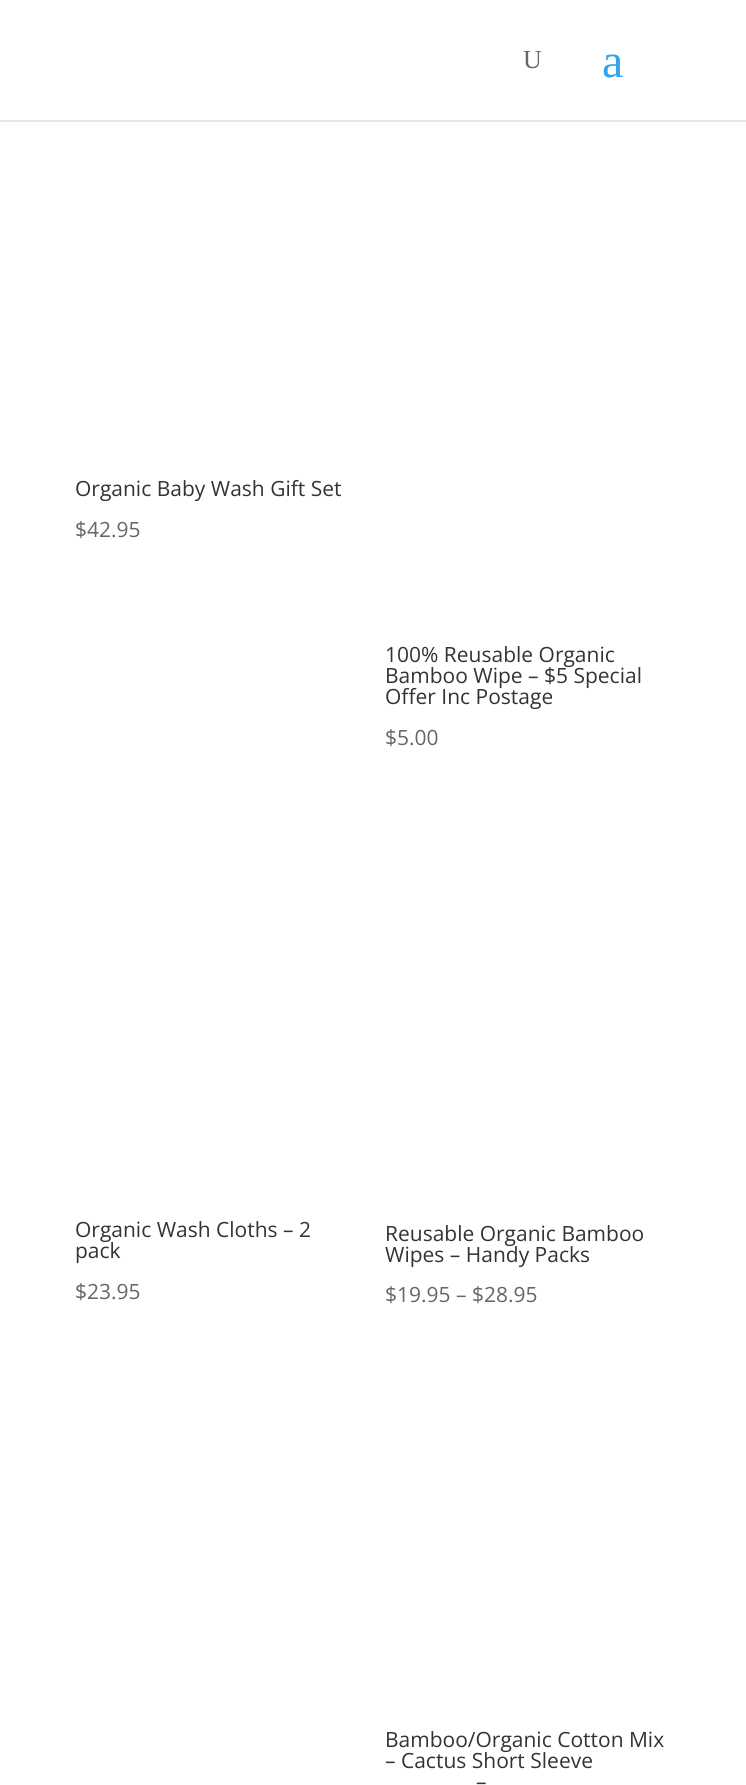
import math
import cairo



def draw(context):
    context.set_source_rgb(1, 1, 1)
    context.paint()
    context.set_source_rgb(230 / 255, 230 / 255, 230 / 255)
    context.rectangle(0, 120, 746, 2)
    context.fill()
    context.select_font_face("Liberation Serif")
    context.set_font_size(26)
    context.set_source_rgb(102 / 255, 102 / 255, 102 / 255)
    context.move_to(523, 68)
    context.show_text("U")
    context.set_font_size(48)
    context.set_source_rgb(46 / 255, 163 / 255, 242 / 255)
    context.move_to(602, 77)
    context.show_text("a")
    context.select_font_face("Open Sans")
    context.set_font_size(21)
    context.set_source_rgb(51 / 255, 51 / 255, 51 / 255)
    context.move_to(75, 496)
    context.show_text("Organic Baby Wash Gift Set")
    context.set_source_rgb(102 / 255, 102 / 255, 102 / 255)
    context.move_to(75, 537)
    context.show_text("$42.95")
    context.set_source_rgb(51 / 255, 51 / 255, 51 / 255)
    context.move_to(385, 662)
    context.show_text("100% Reusable Organic")
    context.move_to(385, 683)
    context.show_text("Bamboo Wipe – $5 Special")
    context.move_to(385, 704)
    context.show_text("Offer Inc Postage")
    context.set_source_rgb(102 / 255, 102 / 255, 102 / 255)
    context.move_to(385, 745)
    context.show_text("$5.00")
    context.set_source_rgb(51 / 255, 51 / 255, 51 / 255)
    context.move_to(75, 1237)
    context.show_text("Organic Wash Cloths – 2")
    context.move_to(75, 1258)
    context.show_text("pack")
    context.set_source_rgb(102 / 255, 102 / 255, 102 / 255)
    context.move_to(75, 1299)
    context.show_text("$23.95")
    context.set_source_rgb(51 / 255, 51 / 255, 51 / 255)
    context.move_to(385, 1241)
    context.show_text("Reusable Organic Bamboo")
    context.move_to(385, 1262)
    context.show_text("Wipes – Handy Packs")
    context.set_source_rgb(102 / 255, 102 / 255, 102 / 255)
    context.move_to(385, 1302)
    context.show_text("$19.95 – $28.95")
    context.set_source_rgb(51 / 255, 51 / 255, 51 / 255)
    context.move_to(385, 1747)
    context.show_text("Bamboo/Organic Cotton Mix")
    context.move_to(385, 1768)
    context.show_text("– Cactus Short Sleeve")
    context.move_to(476, 1789)
    context.show_text("–")


surface = cairo.ImageSurface(cairo.Format.RGB24, 746, 1785)
context = cairo.Context(surface)
options = cairo.FontOptions()
options.set_hint_metrics(cairo.HintMetrics.OFF)
options.set_hint_style(cairo.HintStyle.NONE)
context.set_font_options(options)
context.set_miter_limit(4)
draw(context)
surface.write_to_png("out.png")
